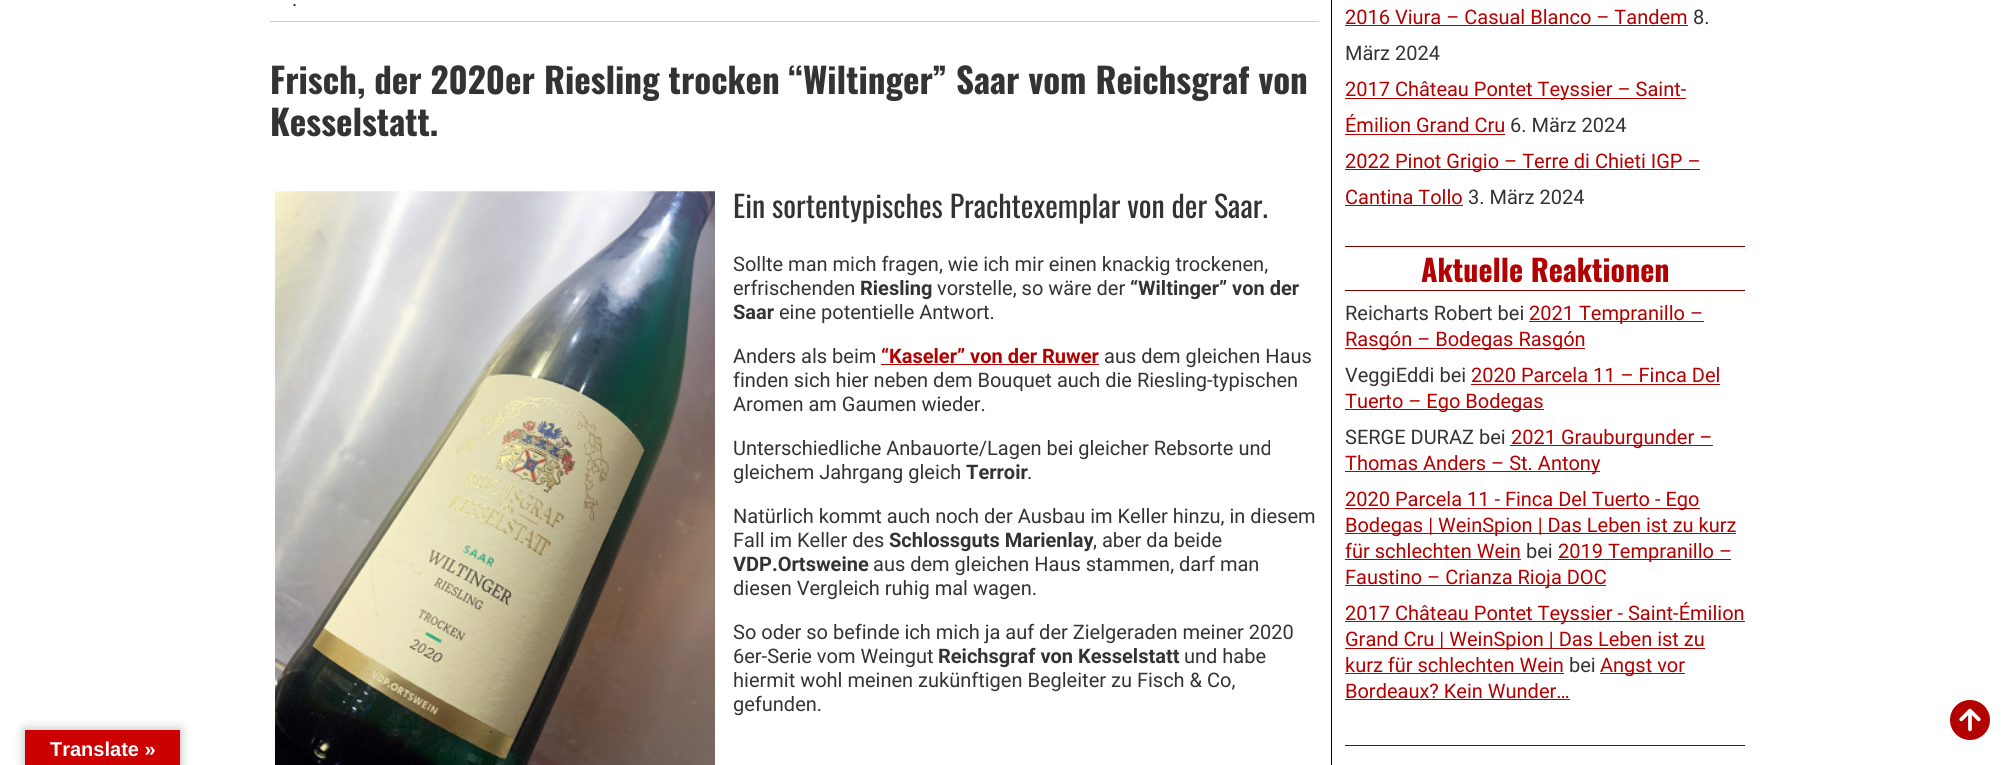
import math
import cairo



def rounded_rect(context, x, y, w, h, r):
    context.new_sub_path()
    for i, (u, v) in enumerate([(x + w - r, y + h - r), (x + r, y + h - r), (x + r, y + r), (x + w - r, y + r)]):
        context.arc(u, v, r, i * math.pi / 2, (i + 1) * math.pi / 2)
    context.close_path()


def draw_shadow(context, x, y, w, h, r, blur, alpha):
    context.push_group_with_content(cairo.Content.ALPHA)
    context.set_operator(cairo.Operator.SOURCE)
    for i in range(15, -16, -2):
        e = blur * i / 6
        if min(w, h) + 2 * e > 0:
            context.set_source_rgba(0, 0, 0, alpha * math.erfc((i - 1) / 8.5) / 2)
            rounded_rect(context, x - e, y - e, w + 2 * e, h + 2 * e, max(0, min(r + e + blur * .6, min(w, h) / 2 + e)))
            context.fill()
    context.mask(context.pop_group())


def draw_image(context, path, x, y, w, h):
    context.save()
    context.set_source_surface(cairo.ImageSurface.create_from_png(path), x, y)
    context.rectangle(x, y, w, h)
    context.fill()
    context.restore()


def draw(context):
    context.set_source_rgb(1, 1, 1)
    context.paint()
    context.set_source_rgb(204 / 255, 204 / 255, 204 / 255)
    context.rectangle(270, 21, 1049, 1)
    context.fill()
    draw_image(context, "images/1.png", 275, 191, 440, 574)
    context.set_source_rgb(179 / 255, 0, 0)
    context.rectangle(881, 364, 218, 1)
    context.fill()
    context.set_source_rgb(0, 0, 0)
    context.rectangle(1331, 0, 1, 765)
    context.fill()
    context.set_source_rgb(179 / 255, 0, 0)
    context.rectangle(1345, 25, 343, 1)
    context.fill()
    context.rectangle(1345, 98, 341, 1)
    context.fill()
    context.rectangle(1345, 134, 160, 1)
    context.fill()
    context.rectangle(1345, 169, 355, 1)
    context.fill()
    context.rectangle(1345, 205, 118, 1)
    context.fill()
    context.set_source_rgb(128 / 255, 0, 0)
    context.rectangle(1345, 246, 400, 1)
    context.fill()
    context.rectangle(1345, 290, 400, 1)
    context.fill()
    context.set_source_rgb(179 / 255, 0, 0)
    context.rectangle(1529, 321, 175, 1)
    context.fill()
    context.rectangle(1345, 348, 240, 1)
    context.fill()
    context.rectangle(1471, 384, 249, 1)
    context.fill()
    context.rectangle(1345, 409, 199, 1)
    context.fill()
    context.rectangle(1510, 445, 203, 1)
    context.fill()
    context.rectangle(1345, 471, 255, 1)
    context.fill()
    context.rectangle(1345, 508, 355, 1)
    context.fill()
    context.rectangle(1345, 533, 391, 1)
    context.fill()
    context.rectangle(1345, 559, 176, 1)
    context.fill()
    context.rectangle(1558, 559, 173, 1)
    context.fill()
    context.rectangle(1345, 585, 261, 1)
    context.fill()
    context.rectangle(1345, 621, 400, 1)
    context.fill()
    context.rectangle(1345, 648, 360, 1)
    context.fill()
    context.rectangle(1345, 673, 219, 1)
    context.fill()
    context.rectangle(1600, 673, 85, 1)
    context.fill()
    context.rectangle(1345, 699, 225, 1)
    context.fill()
    context.set_source_rgb(128 / 255, 0, 0)
    context.rectangle(1345, 745, 400, 1)
    context.fill()
    draw_image(context, "images/2.png", 1950, 700, 40, 40)
    context.set_source_rgb(0, 0, 0)
    draw_shadow(context, 25, 730, 155, 35, 0, 5.5, 0.3)
    context.set_source_rgb(204 / 255, 0, 0)
    context.rectangle(25, 730, 155, 35)
    context.fill()
    context.select_font_face("Roboto")
    context.set_font_size(20)
    context.set_source_rgb(51 / 255, 51 / 255, 51 / 255)
    context.move_to(292, 6)
    context.show_text(".")
    context.select_font_face("Oswald", cairo.FontSlant.NORMAL, cairo.FontWeight.BOLD)
    context.set_font_size(35)
    context.move_to(270, 94)
    context.show_text("Frisch, der 2020er Riesling trocken “Wiltinger” Saar vom Reichsgraf von")
    context.move_to(270, 136)
    context.show_text("Kesselstatt.")
    context.select_font_face("Oswald")
    context.set_font_size(30)
    context.move_to(733, 218)
    context.show_text("Ein sortentypisches Prachtexemplar von der Saar.")
    context.select_font_face("Roboto")
    context.set_font_size(20)
    context.move_to(733, 271)
    context.show_text("Sollte man mich fragen, wie ich mir einen knackig trockenen,")
    context.move_to(733, 295)
    context.show_text("erfrischenden")
    context.select_font_face("Roboto", cairo.FontSlant.NORMAL, cairo.FontWeight.BOLD)
    context.move_to(860, 295)
    context.show_text("Riesling")
    context.select_font_face("Roboto")
    context.move_to(937, 295)
    context.show_text("vorstelle, so wäre der")
    context.select_font_face("Roboto", cairo.FontSlant.NORMAL, cairo.FontWeight.BOLD)
    context.move_to(1130, 295)
    context.show_text("“Wiltinger” von der")
    context.move_to(733, 319)
    context.show_text("Saar")
    context.select_font_face("Roboto")
    context.move_to(779, 319)
    context.show_text("eine potentielle Antwort.")
    context.move_to(733, 363)
    context.show_text("Anders als beim")
    context.select_font_face("Roboto", cairo.FontSlant.NORMAL, cairo.FontWeight.BOLD)
    context.set_source_rgb(179 / 255, 0, 0)
    context.move_to(881, 363)
    context.show_text("“Kaseler” von der Ruwer")
    context.select_font_face("Roboto")
    context.set_source_rgb(51 / 255, 51 / 255, 51 / 255)
    context.move_to(1104, 363)
    context.show_text("aus dem gleichen Haus")
    context.move_to(733, 387)
    context.show_text("finden sich hier neben dem Bouquet auch die Riesling-typischen")
    context.move_to(733, 411)
    context.show_text("Aromen am Gaumen wieder.")
    context.move_to(733, 455)
    context.show_text("Unterschiedliche Anbauorte/Lagen bei gleicher Rebsorte und")
    context.move_to(733, 479)
    context.show_text("gleichem Jahrgang gleich")
    context.select_font_face("Roboto", cairo.FontSlant.NORMAL, cairo.FontWeight.BOLD)
    context.move_to(966, 479)
    context.show_text("Terroir")
    context.select_font_face("Roboto")
    context.move_to(1027, 479)
    context.show_text(".")
    context.move_to(733, 523)
    context.show_text("Natürlich kommt auch noch der Ausbau im Keller hinzu, in diesem")
    context.move_to(733, 547)
    context.show_text("Fall im Keller des")
    context.select_font_face("Roboto", cairo.FontSlant.NORMAL, cairo.FontWeight.BOLD)
    context.move_to(889, 547)
    context.show_text("Schlossguts Marienlay")
    context.select_font_face("Roboto")
    context.move_to(1093, 547)
    context.show_text(", aber da beide")
    context.select_font_face("Roboto", cairo.FontSlant.NORMAL, cairo.FontWeight.BOLD)
    context.move_to(733, 571)
    context.show_text("VDP.Ortsweine")
    context.select_font_face("Roboto")
    context.move_to(873, 571)
    context.show_text("aus dem gleichen Haus stammen, darf man")
    context.move_to(733, 595)
    context.show_text("diesen Vergleich ruhig mal wagen.")
    context.move_to(733, 639)
    context.show_text("So oder so befinde ich mich ja auf der Zielgeraden meiner 2020")
    context.move_to(733, 663)
    context.show_text("6er-Serie vom Weingut")
    context.select_font_face("Roboto", cairo.FontSlant.NORMAL, cairo.FontWeight.BOLD)
    context.move_to(938, 663)
    context.show_text("Reichsgraf von Kesselstatt")
    context.select_font_face("Roboto")
    context.move_to(1184, 663)
    context.show_text("und habe")
    context.move_to(733, 687)
    context.show_text("hiermit wohl meinen zukünftigen Begleiter zu Fisch & Co,")
    context.move_to(733, 711)
    context.show_text("gefunden.")
    context.set_source_rgb(179 / 255, 0, 0)
    context.move_to(1345, 24)
    context.show_text("2016 Viura – Casual Blanco – Tandem")
    context.set_source_rgb(51 / 255, 51 / 255, 51 / 255)
    context.move_to(1693, 24)
    context.show_text("8.")
    context.move_to(1345, 60)
    context.show_text("März 2024")
    context.set_source_rgb(179 / 255, 0, 0)
    context.move_to(1345, 96)
    context.show_text("2017 Château Pontet Teyssier – Saint-")
    context.move_to(1345, 132)
    context.show_text("Émilion Grand Cru")
    context.set_source_rgb(51 / 255, 51 / 255, 51 / 255)
    context.move_to(1510, 132)
    context.show_text("6. März 2024")
    context.set_source_rgb(179 / 255, 0, 0)
    context.move_to(1345, 168)
    context.show_text("2022 Pinot Grigio – Terre di Chieti IGP –")
    context.move_to(1345, 204)
    context.show_text("Cantina Tollo")
    context.set_source_rgb(51 / 255, 51 / 255, 51 / 255)
    context.move_to(1468, 204)
    context.show_text("3. März 2024")
    context.select_font_face("Oswald", cairo.FontSlant.NORMAL, cairo.FontWeight.BOLD)
    context.set_font_size(30)
    context.set_source_rgb(179 / 255, 0, 0)
    context.move_to(1421, 282)
    context.show_text("Aktuelle Reaktionen")
    context.select_font_face("Roboto")
    context.set_font_size(20)
    context.set_source_rgb(51 / 255, 51 / 255, 51 / 255)
    context.move_to(1345, 320)
    context.show_text("Reicharts Robert bei")
    context.set_source_rgb(179 / 255, 0, 0)
    context.move_to(1529, 320)
    context.show_text("2021 Tempranillo –")
    context.move_to(1345, 346)
    context.show_text("Rasgón – Bodegas Rasgón")
    context.set_source_rgb(51 / 255, 51 / 255, 51 / 255)
    context.move_to(1345, 382)
    context.show_text("VeggiEddi bei")
    context.set_source_rgb(179 / 255, 0, 0)
    context.move_to(1471, 382)
    context.show_text("2020 Parcela 11 – Finca Del")
    context.move_to(1345, 408)
    context.show_text("Tuerto – Ego Bodegas")
    context.set_source_rgb(51 / 255, 51 / 255, 51 / 255)
    context.move_to(1345, 444)
    context.show_text("SERGE DURAZ bei")
    context.set_source_rgb(179 / 255, 0, 0)
    context.move_to(1511, 444)
    context.show_text("2021 Grauburgunder –")
    context.move_to(1345, 470)
    context.show_text("Thomas Anders – St. Antony")
    context.move_to(1345, 506)
    context.show_text("2020 Parcela 11 - Finca Del Tuerto - Ego")
    context.move_to(1345, 532)
    context.show_text("Bodegas | WeinSpion | Das Leben ist zu kurz")
    context.move_to(1345, 558)
    context.show_text("für schlechten Wein")
    context.set_source_rgb(51 / 255, 51 / 255, 51 / 255)
    context.move_to(1526, 558)
    context.show_text("bei")
    context.set_source_rgb(179 / 255, 0, 0)
    context.move_to(1558, 558)
    context.show_text("2019 Tempranillo –")
    context.move_to(1345, 584)
    context.show_text("Faustino – Crianza Rioja DOC")
    context.move_to(1345, 620)
    context.show_text("2017 Château Pontet Teyssier - Saint-Émilion")
    context.move_to(1345, 646)
    context.show_text("Grand Cru | WeinSpion | Das Leben ist zu")
    context.move_to(1345, 672)
    context.show_text("kurz für schlechten Wein")
    context.set_source_rgb(51 / 255, 51 / 255, 51 / 255)
    context.move_to(1569, 672)
    context.show_text("bei")
    context.set_source_rgb(179 / 255, 0, 0)
    context.move_to(1600, 672)
    context.show_text("Angst vor")
    context.move_to(1345, 698)
    context.show_text("Bordeaux? Kein Wunder…")
    context.select_font_face("Liberation Sans", cairo.FontSlant.NORMAL, cairo.FontWeight.BOLD)
    context.set_source_rgb(1, 1, 1)
    context.move_to(50, 756)
    context.show_text("Translate »")


surface = cairo.ImageSurface(cairo.Format.RGB24, 2014, 765)
context = cairo.Context(surface)
options = cairo.FontOptions()
options.set_hint_metrics(cairo.HintMetrics.OFF)
options.set_hint_style(cairo.HintStyle.NONE)
context.set_font_options(options)
context.set_miter_limit(4)
draw(context)
surface.write_to_png("out.png")
